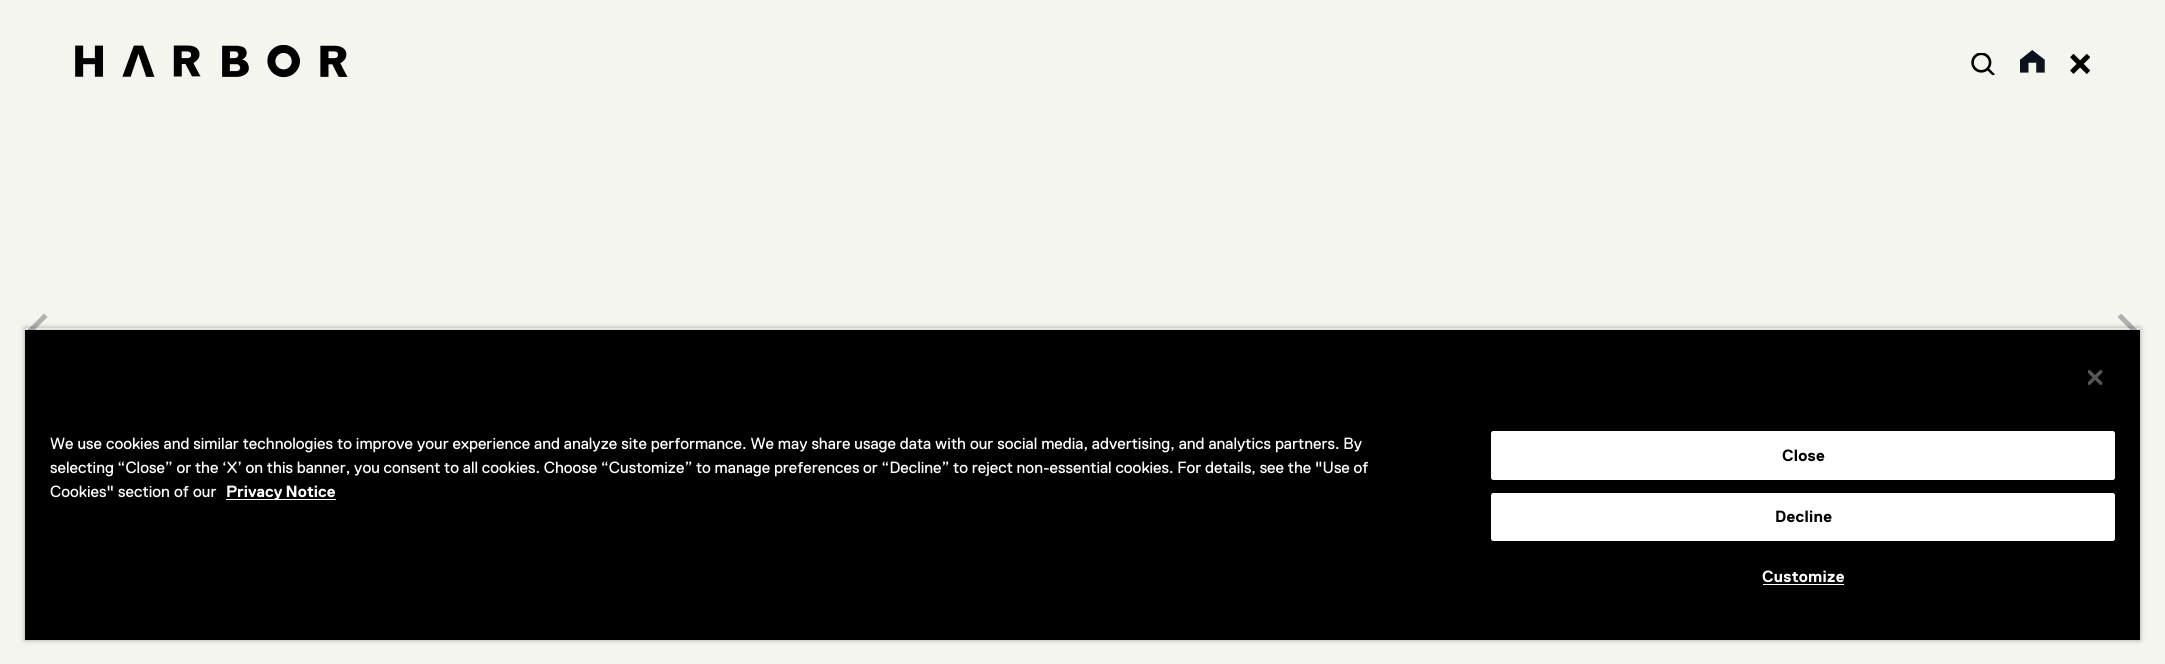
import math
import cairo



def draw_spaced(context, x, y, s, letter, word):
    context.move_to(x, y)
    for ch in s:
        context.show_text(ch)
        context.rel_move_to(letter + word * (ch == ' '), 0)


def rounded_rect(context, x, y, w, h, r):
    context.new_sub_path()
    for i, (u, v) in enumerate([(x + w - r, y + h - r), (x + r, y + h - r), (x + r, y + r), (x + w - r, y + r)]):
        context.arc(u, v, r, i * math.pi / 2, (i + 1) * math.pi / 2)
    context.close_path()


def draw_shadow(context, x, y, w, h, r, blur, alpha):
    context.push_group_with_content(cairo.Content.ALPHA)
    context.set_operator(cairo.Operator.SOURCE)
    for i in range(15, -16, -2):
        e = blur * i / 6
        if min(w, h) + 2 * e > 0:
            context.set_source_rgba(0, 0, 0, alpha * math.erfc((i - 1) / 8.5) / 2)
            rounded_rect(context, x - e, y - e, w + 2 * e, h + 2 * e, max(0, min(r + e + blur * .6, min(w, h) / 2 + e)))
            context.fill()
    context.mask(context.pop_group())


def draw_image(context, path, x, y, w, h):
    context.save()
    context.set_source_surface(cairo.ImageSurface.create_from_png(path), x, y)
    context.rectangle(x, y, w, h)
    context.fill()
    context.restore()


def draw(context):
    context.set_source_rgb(245 / 255, 245 / 255, 240 / 255)
    context.paint()
    draw_image(context, "images/1.png", 75, 45, 273, 33)
    draw_image(context, "images/2.png", 1971, 53, 24, 22)
    draw_image(context, "images/3.png", 2020, 50, 25, 23)
    draw_image(context, "images/4.png", 2070, 54, 20, 20)
    context.set_source_rgb(175 / 255, 177 / 255, 177 / 255)
    context.new_path()
    context.move_to(44, 351.5)
    context.line_to(47.5, 348)
    context.line_to(32, 332.5)
    context.line_to(47.5, 317)
    context.line_to(44, 313.5)
    context.line_to(25, 332.5)
    context.close_path()
    context.fill()
    context.save()
    context.rectangle(2118, 314, 22, 37)
    context.clip()
    context.new_path()
    context.move_to(2121, 313.5)
    context.line_to(2117.5, 317)
    context.line_to(2133, 332.5)
    context.line_to(2117.5, 348)
    context.line_to(2121, 351.5)
    context.line_to(2140, 332.5)
    context.close_path()
    context.fill()
    context.restore()
    context.save()
    context.set_fill_rule(cairo.FillRule.EVEN_ODD)
    context.new_path()
    context.move_to(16, 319)
    context.line_to(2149, 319)
    context.line_to(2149, 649)
    context.line_to(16, 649)
    context.close_path()
    context.move_to(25, 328)
    context.line_to(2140, 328)
    context.line_to(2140, 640)
    context.line_to(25, 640)
    context.close_path()
    context.clip()
    context.set_source_rgb(0, 0, 0)
    draw_shadow(context, 25, 328, 2115, 312, 0, 2.5, 0.35)
    context.restore()
    context.save()
    context.rectangle(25, 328, 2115, 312)
    context.clip()
    context.set_source_rgb(0, 0, 0)
    draw_shadow(context, 25, 330, 2115, 310, 0, 2.5, 0.2)
    context.restore()
    context.set_source_rgb(0, 0, 0)
    context.rectangle(25, 330, 2115, 310)
    context.fill()
    draw_image(context, "images/5.png", 2088, 370, 15, 15)
    context.set_source_rgb(1, 1, 1)
    context.rectangle(226, 499, 110, 1)
    context.fill()
    rounded_rect(context, 1491.5, 431.5, 623, 48, 2)
    context.fill_preserve()
    context.set_line_width(1)
    context.stroke()
    rounded_rect(context, 1491.5, 493.5, 623, 47, 2)
    context.fill_preserve()
    context.stroke()
    context.rectangle(1763, 584, 81, 1)
    context.fill()
    context.select_font_face("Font")
    context.set_font_size(16.25)
    draw_spaced(context, 50, 449, "We use cookies and similar technologies to improve your experience and analyze site performance. We may share usage data with our social media, advertising, and analytics partners. By", 0, -0.3)
    draw_spaced(context, 50, 473, "selecting “Close” or the ‘X’ on this banner, you consent to all cookies. Choose “Customize” to manage preferences or “Decline” to reject non-essential cookies. For details, see the \"Use of", 0, -0.5)
    context.move_to(50, 497)
    context.show_text("Cookies\" section of our")
    context.select_font_face("Font", cairo.FontSlant.NORMAL, cairo.FontWeight.BOLD)
    draw_spaced(context, 226, 497, "Privacy Notice", 0, -1)
    context.set_source_rgb(0, 0, 0)
    draw_spaced(context, 1782, 461, "Close", 0.25, 0)
    draw_spaced(context, 1775, 522, "Decline", 0.25, 0)
    context.set_source_rgb(1, 1, 1)
    draw_spaced(context, 1762, 582, "Customize", 0.25, 0)


surface = cairo.ImageSurface(cairo.Format.RGB24, 2165, 664)
context = cairo.Context(surface)
options = cairo.FontOptions()
options.set_hint_metrics(cairo.HintMetrics.OFF)
options.set_hint_style(cairo.HintStyle.NONE)
context.set_font_options(options)
context.set_miter_limit(4)
draw(context)
surface.write_to_png("out.png")
